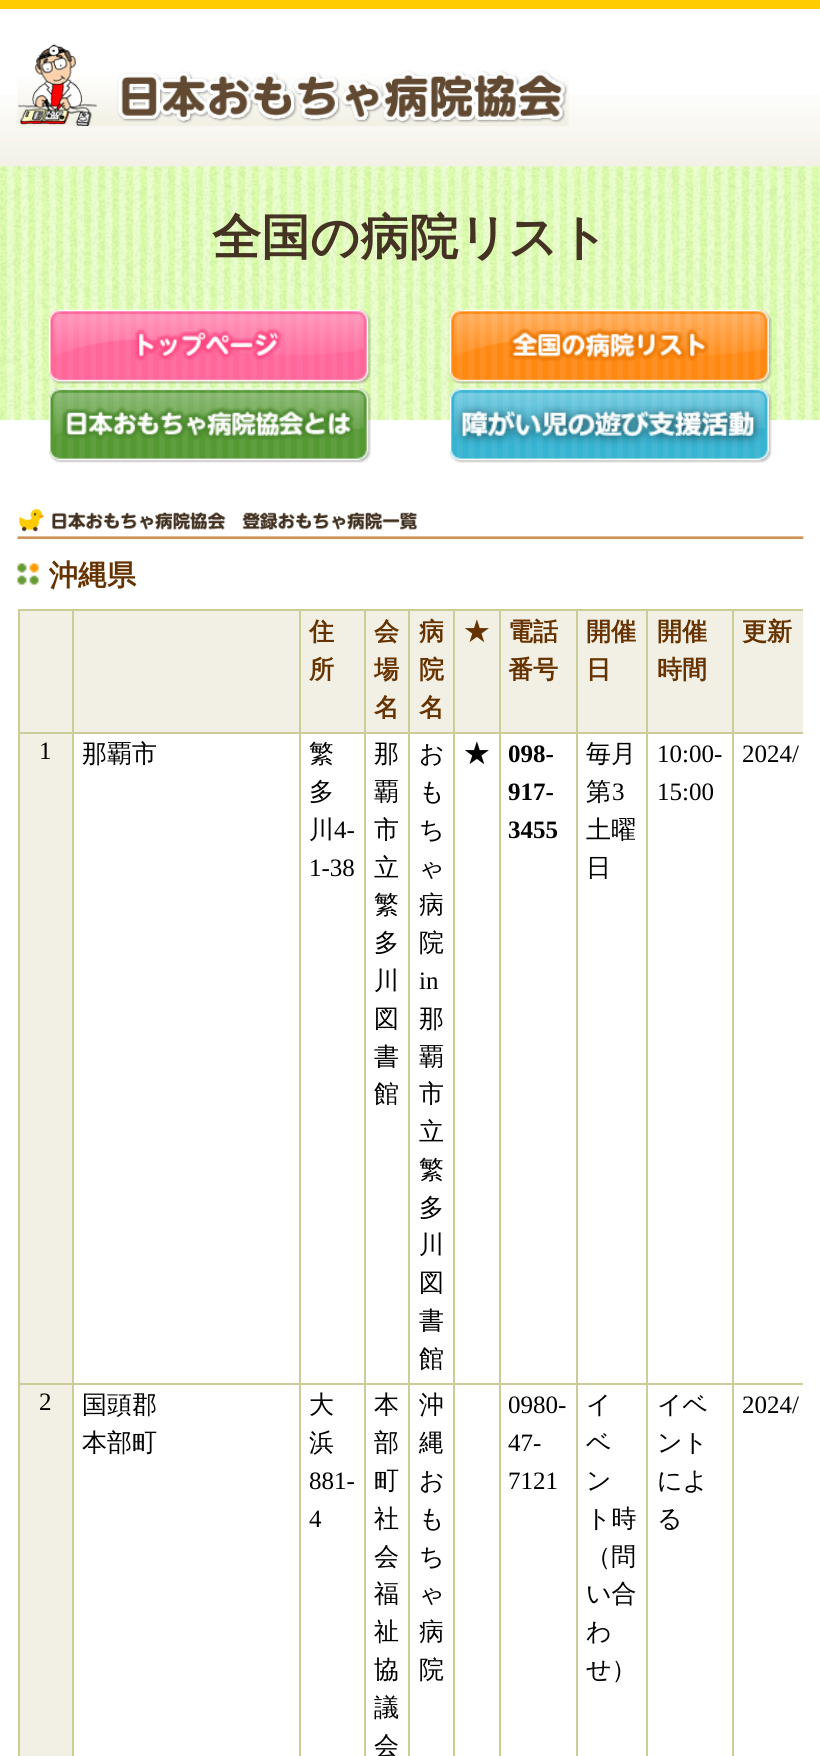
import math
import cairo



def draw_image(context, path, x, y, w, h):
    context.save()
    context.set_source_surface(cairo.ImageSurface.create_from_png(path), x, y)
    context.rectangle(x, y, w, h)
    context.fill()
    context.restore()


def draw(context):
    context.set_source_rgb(1, 1, 1)
    context.paint()
    draw_image(context, "images/1.png", 0, 95, 820, 72)
    context.set_source_rgb(1, 204 / 255, 0)
    context.rectangle(0, 0, 820, 9)
    context.fill()
    draw_image(context, "images/2.png", 17, 44, 552, 82)
    draw_image(context, "images/3.png", 0, 166, 820, 254)
    draw_image(context, "images/4.png", 49, 309, 322, 75)
    draw_image(context, "images/5.png", 449, 309, 323, 75)
    draw_image(context, "images/6.png", 49, 388, 322, 75)
    draw_image(context, "images/7.png", 449, 388, 323, 75)
    draw_image(context, "images/8.png", 17, 509, 787, 30)
    draw_image(context, "images/9.png", 17, 563, 22, 22)
    context.set_source_rgb(204 / 255, 204 / 255, 153 / 255)
    context.rectangle(18, 609, 785, 2)
    context.fill()
    context.set_source_rgb(242 / 255, 240 / 255, 228 / 255)
    context.rectangle(20, 611, 52, 121)
    context.fill()
    context.set_source_rgb(204 / 255, 204 / 255, 153 / 255)
    context.rectangle(732, 1383, 2, 373)
    context.fill()
    context.rectangle(732, 1383, 71, 2)
    context.fill()
    context.rectangle(732, 732, 2, 652)
    context.fill()
    context.rectangle(732, 732, 71, 2)
    context.fill()
    context.rectangle(732, 609, 2, 124)
    context.fill()
    context.rectangle(646, 1383, 2, 373)
    context.fill()
    context.rectangle(646, 1383, 87, 2)
    context.fill()
    context.rectangle(646, 732, 2, 652)
    context.fill()
    context.rectangle(646, 732, 87, 2)
    context.fill()
    context.rectangle(646, 609, 2, 124)
    context.fill()
    context.rectangle(576, 1383, 2, 373)
    context.fill()
    context.rectangle(576, 1383, 72, 2)
    context.fill()
    context.rectangle(576, 732, 2, 652)
    context.fill()
    context.rectangle(576, 732, 72, 2)
    context.fill()
    context.rectangle(576, 609, 2, 124)
    context.fill()
    context.rectangle(499, 1383, 2, 373)
    context.fill()
    context.rectangle(499, 1383, 79, 2)
    context.fill()
    context.rectangle(499, 732, 2, 652)
    context.fill()
    context.rectangle(499, 732, 79, 2)
    context.fill()
    context.rectangle(499, 609, 2, 124)
    context.fill()
    context.rectangle(453, 1383, 2, 373)
    context.fill()
    context.rectangle(453, 1383, 48, 2)
    context.fill()
    context.rectangle(453, 732, 2, 652)
    context.fill()
    context.rectangle(453, 732, 48, 2)
    context.fill()
    context.rectangle(453, 609, 2, 124)
    context.fill()
    context.rectangle(408, 1383, 2, 373)
    context.fill()
    context.rectangle(408, 1383, 47, 2)
    context.fill()
    context.rectangle(408, 732, 2, 652)
    context.fill()
    context.rectangle(408, 732, 47, 2)
    context.fill()
    context.rectangle(408, 609, 2, 124)
    context.fill()
    context.rectangle(364, 1383, 2, 373)
    context.fill()
    context.rectangle(364, 1383, 46, 2)
    context.fill()
    context.rectangle(364, 732, 2, 652)
    context.fill()
    context.rectangle(364, 732, 46, 2)
    context.fill()
    context.rectangle(364, 609, 2, 124)
    context.fill()
    context.rectangle(299, 1383, 2, 373)
    context.fill()
    context.rectangle(299, 1383, 67, 2)
    context.fill()
    context.rectangle(299, 732, 2, 652)
    context.fill()
    context.rectangle(299, 732, 67, 2)
    context.fill()
    context.rectangle(299, 609, 2, 124)
    context.fill()
    context.rectangle(72, 1383, 2, 373)
    context.fill()
    context.rectangle(72, 1383, 229, 2)
    context.fill()
    context.rectangle(72, 732, 2, 652)
    context.fill()
    context.rectangle(72, 732, 229, 2)
    context.fill()
    context.rectangle(72, 609, 2, 124)
    context.fill()
    context.rectangle(18, 1383, 2, 373)
    context.fill()
    context.rectangle(18, 1383, 56, 2)
    context.fill()
    context.rectangle(18, 732, 2, 652)
    context.fill()
    context.rectangle(18, 732, 56, 2)
    context.fill()
    context.rectangle(18, 609, 2, 124)
    context.fill()
    context.set_source_rgb(242 / 255, 240 / 255, 228 / 255)
    context.rectangle(74, 611, 225, 121)
    context.fill()
    context.rectangle(301, 611, 63, 121)
    context.fill()
    context.rectangle(366, 611, 42, 121)
    context.fill()
    context.rectangle(410, 611, 43, 121)
    context.fill()
    context.rectangle(455, 611, 44, 121)
    context.fill()
    context.rectangle(501, 611, 75, 121)
    context.fill()
    context.rectangle(578, 611, 68, 121)
    context.fill()
    context.rectangle(648, 611, 84, 121)
    context.fill()
    context.rectangle(734, 611, 69, 121)
    context.fill()
    context.rectangle(20, 734, 52, 649)
    context.fill()
    context.rectangle(20, 1385, 52, 371)
    context.fill()
    context.select_font_face("WenQuanYi Zen Hei", cairo.FontSlant.NORMAL, cairo.FontWeight.BOLD)
    context.set_font_size(49)
    context.set_source_rgb(68 / 255, 51 / 255, 34 / 255)
    context.move_to(212, 254)
    context.show_text("全国の病院リスト")
    context.set_font_size(29)
    context.set_source_rgb(102 / 255, 51 / 255, 0)
    context.move_to(49, 585)
    context.show_text("沖縄県")
    context.set_font_size(25)
    context.move_to(309, 640)
    context.show_text("住")
    context.move_to(309, 678)
    context.show_text("所")
    context.move_to(374, 640)
    context.show_text("会")
    context.move_to(374, 678)
    context.show_text("場")
    context.move_to(374, 716)
    context.show_text("名")
    context.move_to(419, 640)
    context.show_text("病")
    context.move_to(419, 678)
    context.show_text("院")
    context.move_to(419, 716)
    context.show_text("名")
    context.move_to(464, 640)
    context.show_text("★")
    context.move_to(508, 640)
    context.show_text("電話")
    context.move_to(508, 678)
    context.show_text("番号")
    context.move_to(586, 640)
    context.show_text("開催")
    context.move_to(586, 678)
    context.show_text("日")
    context.move_to(657, 640)
    context.show_text("開催")
    context.move_to(657, 678)
    context.show_text("時間")
    context.move_to(742, 640)
    context.show_text("更新")
    context.select_font_face("Liberation Serif")
    context.set_source_rgb(0, 0, 0)
    context.move_to(39, 759)
    context.show_text("1")
    context.select_font_face("WenQuanYi Zen Hei Medium")
    context.move_to(82, 762)
    context.show_text("那覇市")
    context.move_to(309, 762)
    context.show_text("繁")
    context.move_to(309, 800)
    context.show_text("多")
    context.move_to(309, 838)
    context.show_text("川")
    context.select_font_face("Liberation Serif")
    context.move_to(334, 838)
    context.show_text("4-")
    context.move_to(309, 876)
    context.show_text("1-38")
    context.select_font_face("WenQuanYi Zen Hei Medium")
    context.move_to(374, 762)
    context.show_text("那")
    context.move_to(374, 800)
    context.show_text("覇")
    context.move_to(374, 838)
    context.show_text("市")
    context.move_to(374, 876)
    context.show_text("立")
    context.move_to(374, 913)
    context.show_text("繁")
    context.move_to(374, 951)
    context.show_text("多")
    context.move_to(374, 989)
    context.show_text("川")
    context.move_to(374, 1027)
    context.show_text("図")
    context.move_to(374, 1065)
    context.show_text("書")
    context.move_to(374, 1102)
    context.show_text("館")
    context.move_to(419, 762)
    context.show_text("お")
    context.move_to(419, 800)
    context.show_text("も")
    context.move_to(419, 838)
    context.show_text("ち")
    context.move_to(419, 876)
    context.show_text("ゃ")
    context.move_to(419, 913)
    context.show_text("病")
    context.move_to(419, 951)
    context.show_text("院")
    context.select_font_face("Liberation Serif")
    context.move_to(419, 989)
    context.show_text("in")
    context.select_font_face("WenQuanYi Zen Hei Medium")
    context.move_to(419, 1027)
    context.show_text("那")
    context.move_to(419, 1065)
    context.show_text("覇")
    context.move_to(419, 1102)
    context.show_text("市")
    context.move_to(419, 1140)
    context.show_text("立")
    context.move_to(419, 1178)
    context.show_text("繁")
    context.move_to(419, 1216)
    context.show_text("多")
    context.move_to(419, 1253)
    context.show_text("川")
    context.move_to(419, 1291)
    context.show_text("図")
    context.move_to(419, 1329)
    context.show_text("書")
    context.move_to(419, 1367)
    context.show_text("館")
    context.select_font_face("WenQuanYi Zen Hei", cairo.FontSlant.NORMAL, cairo.FontWeight.BOLD)
    context.move_to(464, 762)
    context.show_text("★")
    context.select_font_face("Liberation Serif", cairo.FontSlant.NORMAL, cairo.FontWeight.BOLD)
    context.move_to(508, 762)
    context.show_text("098-")
    context.move_to(508, 800)
    context.show_text("917-")
    context.move_to(508, 838)
    context.show_text("3455")
    context.select_font_face("WenQuanYi Zen Hei Medium")
    context.move_to(586, 762)
    context.show_text("毎月")
    context.move_to(586, 800)
    context.show_text("第")
    context.select_font_face("Liberation Serif")
    context.move_to(612, 800)
    context.show_text("3")
    context.select_font_face("WenQuanYi Zen Hei Medium")
    context.move_to(586, 838)
    context.show_text("土曜")
    context.move_to(586, 876)
    context.show_text("日")
    context.select_font_face("Liberation Serif")
    context.move_to(657, 762)
    context.show_text("10:00-")
    context.move_to(657, 800)
    context.show_text("15:00")
    context.move_to(742, 762)
    context.show_text("2024/")
    context.move_to(39, 1410)
    context.show_text("2")
    context.select_font_face("WenQuanYi Zen Hei Medium")
    context.move_to(82, 1413)
    context.show_text("国頭郡")
    context.move_to(82, 1451)
    context.show_text("本部町")
    context.move_to(309, 1413)
    context.show_text("大")
    context.move_to(309, 1451)
    context.show_text("浜")
    context.select_font_face("Liberation Serif")
    context.move_to(309, 1489)
    context.show_text("881-")
    context.move_to(309, 1527)
    context.show_text("4")
    context.select_font_face("WenQuanYi Zen Hei Medium")
    context.move_to(374, 1413)
    context.show_text("本")
    context.move_to(374, 1451)
    context.show_text("部")
    context.move_to(374, 1489)
    context.show_text("町")
    context.move_to(374, 1527)
    context.show_text("社")
    context.move_to(374, 1565)
    context.show_text("会")
    context.move_to(374, 1602)
    context.show_text("福")
    context.move_to(374, 1640)
    context.show_text("祉")
    context.move_to(374, 1678)
    context.show_text("協")
    context.move_to(374, 1716)
    context.show_text("議")
    context.move_to(374, 1754)
    context.show_text("会")
    context.move_to(419, 1413)
    context.show_text("沖")
    context.move_to(419, 1451)
    context.show_text("縄")
    context.move_to(419, 1489)
    context.show_text("お")
    context.move_to(419, 1527)
    context.show_text("も")
    context.move_to(419, 1565)
    context.show_text("ち")
    context.move_to(419, 1602)
    context.show_text("ゃ")
    context.move_to(419, 1640)
    context.show_text("病")
    context.move_to(419, 1678)
    context.show_text("院")
    context.select_font_face("Liberation Serif")
    context.move_to(508, 1413)
    context.show_text("0980-")
    context.move_to(508, 1451)
    context.show_text("47-")
    context.move_to(508, 1489)
    context.show_text("7121")
    context.select_font_face("WenQuanYi Zen Hei Medium")
    context.move_to(586, 1413)
    context.show_text("イ")
    context.move_to(586, 1451)
    context.show_text("ベ")
    context.move_to(586, 1489)
    context.show_text("ン")
    context.move_to(586, 1527)
    context.show_text("ト時")
    context.move_to(586, 1565)
    context.show_text("（問")
    context.move_to(586, 1602)
    context.show_text("い合")
    context.move_to(586, 1640)
    context.show_text("わ")
    context.move_to(586, 1678)
    context.show_text("せ）")
    context.move_to(657, 1413)
    context.show_text("イベ")
    context.move_to(657, 1451)
    context.show_text("ント")
    context.move_to(657, 1489)
    context.show_text("によ")
    context.move_to(657, 1527)
    context.show_text("る")
    context.select_font_face("Liberation Serif")
    context.move_to(742, 1413)
    context.show_text("2024/")


surface = cairo.ImageSurface(cairo.Format.RGB24, 820, 1756)
context = cairo.Context(surface)
options = cairo.FontOptions()
options.set_hint_metrics(cairo.HintMetrics.OFF)
options.set_hint_style(cairo.HintStyle.NONE)
context.set_font_options(options)
context.set_miter_limit(4)
draw(context)
surface.write_to_png("out.png")
